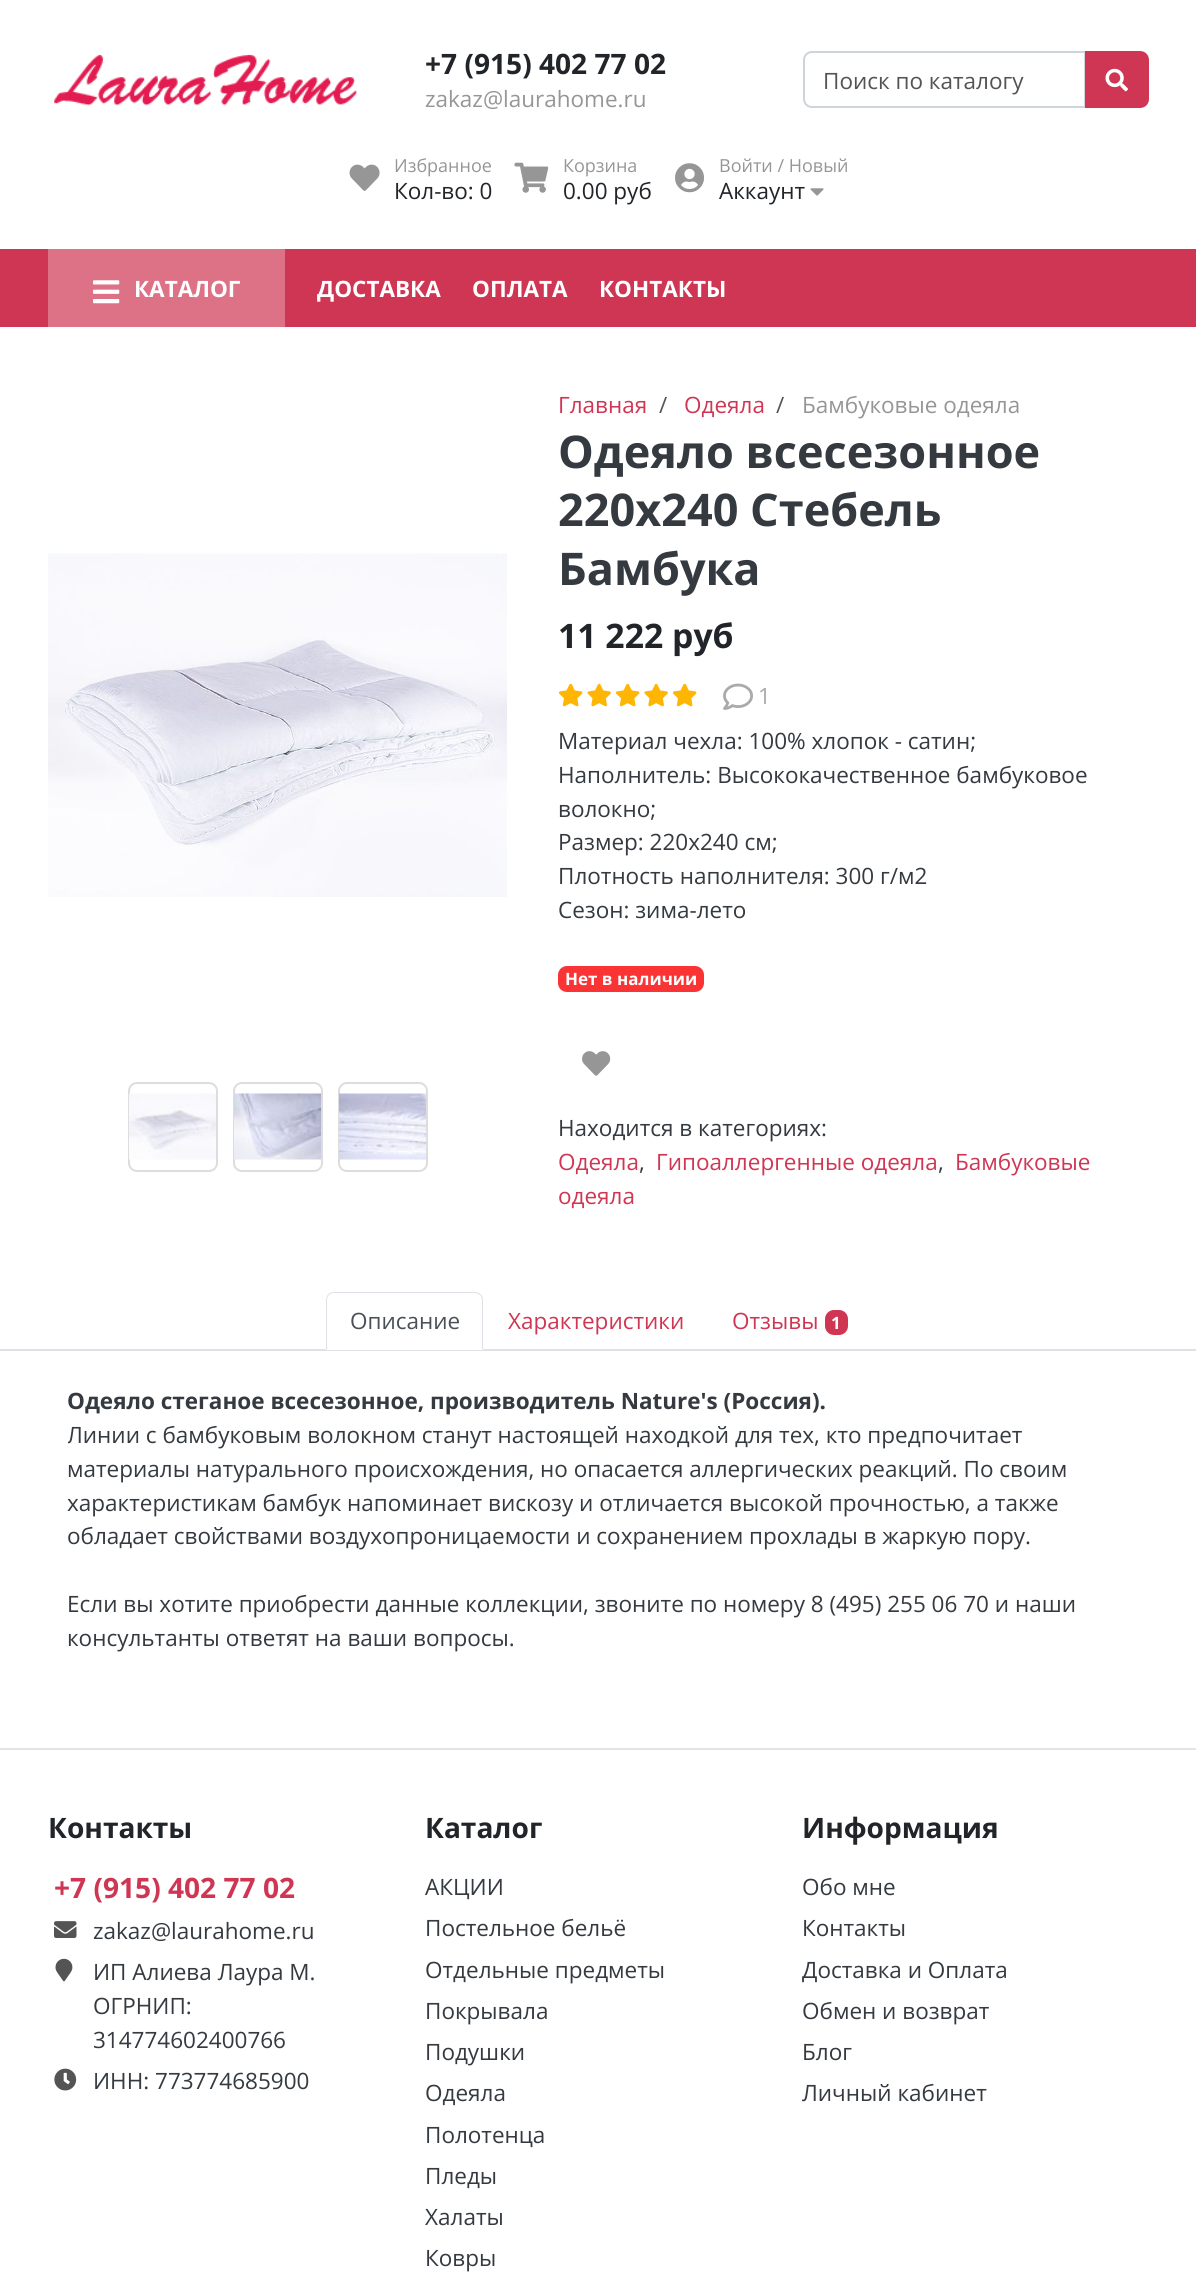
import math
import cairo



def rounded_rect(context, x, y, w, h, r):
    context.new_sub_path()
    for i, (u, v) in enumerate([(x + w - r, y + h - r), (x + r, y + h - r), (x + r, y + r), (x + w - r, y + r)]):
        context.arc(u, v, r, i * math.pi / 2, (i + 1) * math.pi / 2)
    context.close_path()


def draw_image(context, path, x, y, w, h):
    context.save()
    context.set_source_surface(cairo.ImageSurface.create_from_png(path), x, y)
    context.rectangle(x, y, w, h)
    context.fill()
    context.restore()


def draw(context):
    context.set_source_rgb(1, 1, 1)
    context.paint()
    draw_image(context, "images/1.png", 53, 54, 304, 52)
    context.new_path()
    context.move_to(812, 52)
    context.line_to(1085, 52)
    context.line_to(1085, 107)
    context.line_to(812, 107)
    context.curve_to(807.5, 107, 804, 103.5, 804, 99)
    context.line_to(804, 60)
    context.curve_to(804, 55.5, 807.5, 52, 812, 52)
    context.close_path()
    context.set_source_rgb(206 / 255, 212 / 255, 218 / 255)
    context.stroke()
    context.set_source_rgb(207 / 255, 54 / 255, 84 / 255)
    context.new_path()
    context.move_to(1086, 52)
    context.line_to(1140, 52)
    context.curve_to(1144.5, 52, 1148, 55.5, 1148, 60)
    context.line_to(1148, 99)
    context.curve_to(1148, 103.5, 1144.5, 107, 1140, 107)
    context.line_to(1086, 107)
    context.close_path()
    context.fill_preserve()
    context.stroke()
    draw_image(context, "images/2.png", 1105, 68, 23, 24)
    draw_image(context, "images/3.png", 349, 164, 31, 27)
    draw_image(context, "images/4.png", 514, 162, 35, 31)
    draw_image(context, "images/5.png", 675, 163, 29, 30)
    draw_image(context, "images/6.png", 810, 188, 14, 8)
    context.rectangle(0, 249, 1196, 78)
    context.fill()
    context.set_source_rgb(221 / 255, 114 / 255, 135 / 255)
    context.rectangle(48, 249, 237, 78)
    context.fill()
    draw_image(context, "images/7.png", 93, 280, 27, 24)
    draw_image(context, "images/8.png", 48, 553, 459, 344)
    rounded_rect(context, 129, 1083, 88, 88, 8)
    context.set_source_rgb(221 / 255, 221 / 255, 221 / 255)
    context.stroke()
    draw_image(context, "images/9.png", 129, 1093, 87, 67)
    rounded_rect(context, 234, 1083, 88, 88, 8)
    context.stroke()
    draw_image(context, "images/10.png", 234, 1093, 87, 67)
    rounded_rect(context, 339, 1083, 88, 88, 8)
    context.stroke()
    draw_image(context, "images/11.png", 339, 1093, 87, 67)
    draw_image(context, "images/12.png", 558, 683, 25, 24)
    draw_image(context, "images/13.png", 587, 683, 24, 24)
    draw_image(context, "images/12.png", 615, 683, 25, 24)
    draw_image(context, "images/13.png", 644, 683, 24, 24)
    draw_image(context, "images/12.png", 672, 683, 25, 24)
    draw_image(context, "images/14.png", 723, 683, 30, 27)
    context.set_source_rgb(250 / 255, 52 / 255, 52 / 255)
    rounded_rect(context, 558, 966, 146, 26, 9)
    context.fill()
    draw_image(context, "images/15.png", 582, 1051, 29, 25)
    context.set_source_rgb(222 / 255, 226 / 255, 230 / 255)
    context.rectangle(0, 1349, 1196, 2)
    context.fill()
    context.set_source_rgb(1, 1, 1)
    context.new_path()
    context.move_to(335, 1292)
    context.line_to(474, 1292)
    context.curve_to(479, 1292, 483, 1296, 483, 1301)
    context.line_to(483, 1350)
    context.line_to(326, 1350)
    context.line_to(326, 1301)
    context.curve_to(326, 1296, 330, 1292, 335, 1292)
    context.close_path()
    context.fill()
    context.set_source_rgb(222 / 255, 226 / 255, 230 / 255)
    context.new_path()
    context.move_to(334, 1292)
    context.curve_to(332, 1292, 330, 1293, 328, 1294)
    context.line_to(329, 1295)
    context.curve_to(330, 1294, 332, 1293, 334, 1293)
    context.line_to(475, 1293)
    context.curve_to(476, 1293, 478, 1294, 480, 1295)
    context.line_to(480, 1294)
    context.curve_to(479, 1293, 477, 1292, 475, 1292)
    context.close_path()
    context.fill()
    context.new_path()
    context.move_to(480, 1294)
    context.curve_to(482, 1295, 483, 1297, 483, 1300)
    context.line_to(483, 1350)
    context.line_to(481, 1348)
    context.line_to(482, 1348)
    context.line_to(482, 1300)
    context.curve_to(482, 1298, 481, 1296, 480, 1295)
    context.close_path()
    context.fill()
    context.set_source_rgb(1, 1, 1)
    context.new_path()
    context.move_to(483, 1350)
    context.line_to(481, 1348)
    context.line_to(328, 1348)
    context.line_to(326, 1350)
    context.close_path()
    context.fill()
    context.set_source_rgb(222 / 255, 226 / 255, 230 / 255)
    context.new_path()
    context.move_to(328, 1294)
    context.curve_to(327, 1296, 326, 1298, 326, 1300)
    context.line_to(326, 1350)
    context.line_to(328, 1348)
    context.line_to(327, 1348)
    context.line_to(327, 1300)
    context.curve_to(327, 1298, 328, 1296, 329, 1295)
    context.close_path()
    context.fill()
    context.set_source_rgb(207 / 255, 54 / 255, 84 / 255)
    rounded_rect(context, 825, 1310, 23, 25, 9)
    context.fill()
    context.set_source_rgb(228 / 255, 228 / 255, 228 / 255)
    context.rectangle(0, 1748, 1196, 2)
    context.fill()
    draw_image(context, "images/16.png", 54, 1921, 23, 17)
    draw_image(context, "images/17.png", 55, 1958, 18, 24)
    draw_image(context, "images/18.png", 54, 2068, 23, 23)
    context.select_font_face("Open Sans", cairo.FontSlant.NORMAL, cairo.FontWeight.BOLD)
    context.set_font_size(28.1)
    context.set_source_rgb(33 / 255, 37 / 255, 41 / 255)
    context.move_to(425, 74)
    context.show_text("+7 (915) 402 77 02")
    context.select_font_face("Open Sans")
    context.set_font_size(22.5)
    context.set_source_rgb(150 / 255, 150 / 255, 150 / 255)
    context.move_to(425, 107)
    context.show_text("zakaz@laurahome.ru")
    context.set_source_rgb(84 / 255, 84 / 255, 84 / 255)
    context.move_to(823, 89)
    context.show_text("Поиск по каталогу")
    context.set_font_size(18)
    context.set_source_rgb(150 / 255, 150 / 255, 150 / 255)
    context.move_to(394, 172)
    context.show_text("Избранное")
    context.set_font_size(22.5)
    context.set_source_rgb(33 / 255, 37 / 255, 41 / 255)
    context.move_to(394, 199)
    context.show_text("Кол-во: 0")
    context.set_font_size(18)
    context.set_source_rgb(150 / 255, 150 / 255, 150 / 255)
    context.move_to(563, 172)
    context.show_text("Корзина")
    context.set_font_size(22.5)
    context.set_source_rgb(33 / 255, 37 / 255, 41 / 255)
    context.move_to(563, 199)
    context.show_text("0.00 руб")
    context.set_font_size(18)
    context.set_source_rgb(150 / 255, 150 / 255, 150 / 255)
    context.move_to(719, 172)
    context.show_text("Войти / Новый")
    context.set_font_size(22.5)
    context.set_source_rgb(33 / 255, 37 / 255, 41 / 255)
    context.move_to(719, 199)
    context.show_text("Аккаунт")
    context.select_font_face("Open Sans", cairo.FontSlant.NORMAL, cairo.FontWeight.BOLD)
    context.set_source_rgb(1, 1, 1)
    context.move_to(134, 297)
    context.show_text("КАТАЛОГ")
    context.move_to(317, 297)
    context.show_text("ДОСТАВКА")
    context.move_to(472, 297)
    context.show_text("ОПЛАТА")
    context.move_to(599, 297)
    context.show_text("КОНТАКТЫ")
    context.select_font_face("Open Sans")
    context.set_source_rgb(207 / 255, 54 / 255, 84 / 255)
    context.move_to(558, 413)
    context.show_text("Главная")
    context.set_source_rgb(84 / 255, 84 / 255, 84 / 255)
    context.move_to(659, 413)
    context.show_text("/")
    context.set_source_rgb(207 / 255, 54 / 255, 84 / 255)
    context.move_to(684, 413)
    context.show_text("Одеяла")
    context.set_source_rgb(84 / 255, 84 / 255, 84 / 255)
    context.move_to(776, 413)
    context.show_text("/")
    context.set_source_rgb(150 / 255, 150 / 255, 150 / 255)
    context.move_to(802, 413)
    context.show_text("Бамбуковые одеяла")
    context.select_font_face("Open Sans", cairo.FontSlant.NORMAL, cairo.FontWeight.BOLD)
    context.set_font_size(45)
    context.set_source_rgb(52 / 255, 58 / 255, 64 / 255)
    context.move_to(558, 468)
    context.show_text("Одеяло всесезонное")
    context.move_to(558, 526)
    context.show_text("220х240 Стебель")
    context.move_to(558, 585)
    context.show_text("Бамбука")
    context.set_font_size(33.75)
    context.set_source_rgb(33 / 255, 37 / 255, 41 / 255)
    context.move_to(558, 648)
    context.show_text("11 222 руб")
    context.select_font_face("Open Sans")
    context.set_font_size(22.5)
    context.set_source_rgb(170 / 255, 170 / 255, 170 / 255)
    context.move_to(758, 704)
    context.show_text("1")
    context.set_source_rgb(52 / 255, 58 / 255, 64 / 255)
    context.move_to(558, 749)
    context.show_text("Материал чехла: 100% хлопок - сатин;")
    context.move_to(558, 783)
    context.show_text("Наполнитель: Высококачественное бамбуковое")
    context.move_to(558, 817)
    context.show_text("волокно;")
    context.move_to(558, 850)
    context.show_text("Размер: 220х240 см;")
    context.move_to(558, 884)
    context.show_text("Плотность наполнителя: 300 г/м2")
    context.move_to(558, 918)
    context.show_text("Сезон: зима-лето")
    context.select_font_face("Open Sans", cairo.FontSlant.NORMAL, cairo.FontWeight.BOLD)
    context.set_font_size(17)
    context.set_source_rgb(1, 1, 1)
    context.move_to(565, 985)
    context.show_text("Нет в наличии")
    context.select_font_face("Open Sans")
    context.set_font_size(22.5)
    context.set_source_rgb(52 / 255, 58 / 255, 64 / 255)
    context.move_to(558, 1136)
    context.show_text("Находится в категориях:")
    context.set_source_rgb(207 / 255, 54 / 255, 84 / 255)
    context.move_to(558, 1170)
    context.show_text("Одеяла")
    context.set_source_rgb(52 / 255, 58 / 255, 64 / 255)
    context.move_to(639, 1170)
    context.show_text(",")
    context.set_source_rgb(207 / 255, 54 / 255, 84 / 255)
    context.move_to(656, 1170)
    context.show_text("Гипоаллергенные одеяла")
    context.set_source_rgb(52 / 255, 58 / 255, 64 / 255)
    context.move_to(938, 1170)
    context.show_text(",")
    context.set_source_rgb(207 / 255, 54 / 255, 84 / 255)
    context.move_to(955, 1170)
    context.show_text("Бамбуковые")
    context.move_to(558, 1204)
    context.show_text("одеяла")
    context.set_source_rgb(73 / 255, 80 / 255, 87 / 255)
    context.move_to(350, 1329)
    context.show_text("Описание")
    context.set_source_rgb(207 / 255, 54 / 255, 84 / 255)
    context.move_to(508, 1329)
    context.show_text("Характеристики")
    context.move_to(732, 1329)
    context.show_text("Отзывы")
    context.select_font_face("Open Sans", cairo.FontSlant.NORMAL, cairo.FontWeight.BOLD)
    context.set_font_size(17)
    context.set_source_rgb(1, 1, 1)
    context.move_to(831, 1329)
    context.show_text("1")
    context.set_font_size(22.5)
    context.set_source_rgb(52 / 255, 58 / 255, 64 / 255)
    context.move_to(67, 1409)
    context.show_text("Одеяло стеганое всесезонное, производитель Nature's (Россия).")
    context.save()
    context.rectangle(68, 1385, 1063, 270)
    context.clip()
    context.select_font_face("Open Sans")
    context.move_to(67, 1443)
    context.show_text("Линии с бамбуковым волокном станут настоящей находкой для тех, кто предпочитает")
    context.restore()
    context.select_font_face("Open Sans")
    context.move_to(67, 1477)
    context.show_text("материалы натурального происхождения, но опасается аллергических реакций. По своим")
    context.move_to(67, 1511)
    context.show_text("характеристикам бамбук напоминает вискозу и отличается высокой прочностью, а также")
    context.move_to(67, 1544)
    context.show_text("обладает свойствами воздухопроницаемости и сохранением прохлады в жаркую пору.")
    context.move_to(67, 1612)
    context.show_text("Если вы хотите приобрести данные коллекции, звоните по номеру 8 (495) 255 06 70 и наши")
    context.move_to(67, 1646)
    context.show_text("консультанты ответят на ваши вопросы.")
    context.select_font_face("Open Sans", cairo.FontSlant.NORMAL, cairo.FontWeight.BOLD)
    context.set_font_size(28.1)
    context.set_source_rgb(33 / 255, 37 / 255, 41 / 255)
    context.move_to(48, 1838)
    context.show_text("Контакты")
    context.set_source_rgb(207 / 255, 54 / 255, 84 / 255)
    context.move_to(54, 1898)
    context.show_text("+7 (915) 402 77 02")
    context.select_font_face("Open Sans")
    context.set_font_size(22.5)
    context.set_source_rgb(52 / 255, 58 / 255, 64 / 255)
    context.move_to(93, 1939)
    context.show_text("zakaz@laurahome.ru")
    context.move_to(93, 1980)
    context.show_text("ИП Алиева Лаура М.")
    context.move_to(93, 2014)
    context.show_text("ОГРНИП:")
    context.move_to(93, 2048)
    context.show_text("314774602400766")
    context.move_to(93, 2089)
    context.show_text("ИНН: 773774685900")
    context.select_font_face("Open Sans", cairo.FontSlant.NORMAL, cairo.FontWeight.BOLD)
    context.set_font_size(28.1)
    context.set_source_rgb(33 / 255, 37 / 255, 41 / 255)
    context.move_to(425, 1838)
    context.show_text("Каталог")
    context.select_font_face("Open Sans")
    context.set_font_size(22.5)
    context.set_source_rgb(52 / 255, 58 / 255, 64 / 255)
    context.move_to(425, 1895)
    context.show_text("АКЦИИ")
    context.move_to(425, 1936)
    context.show_text("Постельное бельё")
    context.move_to(425, 1978)
    context.show_text("Отдельные предметы")
    context.move_to(425, 2019)
    context.show_text("Покрывала")
    context.move_to(425, 2060)
    context.show_text("Подушки")
    context.move_to(425, 2101)
    context.show_text("Одеяла")
    context.move_to(425, 2143)
    context.show_text("Полотенца")
    context.move_to(425, 2184)
    context.show_text("Пледы")
    context.move_to(425, 2225)
    context.show_text("Халаты")
    context.move_to(425, 2266)
    context.show_text("Ковры")
    context.select_font_face("Open Sans", cairo.FontSlant.NORMAL, cairo.FontWeight.BOLD)
    context.set_font_size(28.1)
    context.set_source_rgb(33 / 255, 37 / 255, 41 / 255)
    context.move_to(802, 1838)
    context.show_text("Информация")
    context.select_font_face("Open Sans")
    context.set_font_size(22.5)
    context.set_source_rgb(52 / 255, 58 / 255, 64 / 255)
    context.move_to(802, 1895)
    context.show_text("Обо мне")
    context.move_to(802, 1936)
    context.show_text("Контакты")
    context.move_to(802, 1978)
    context.show_text("Доставка и Оплата")
    context.move_to(802, 2019)
    context.show_text("Обмен и возврат")
    context.move_to(802, 2060)
    context.show_text("Блог")
    context.move_to(802, 2101)
    context.show_text("Личный кабинет")


surface = cairo.ImageSurface(cairo.Format.RGB24, 1196, 2293)
context = cairo.Context(surface)
options = cairo.FontOptions()
options.set_hint_metrics(cairo.HintMetrics.OFF)
options.set_hint_style(cairo.HintStyle.NONE)
context.set_font_options(options)
context.set_miter_limit(4)
draw(context)
surface.write_to_png("out.png")
